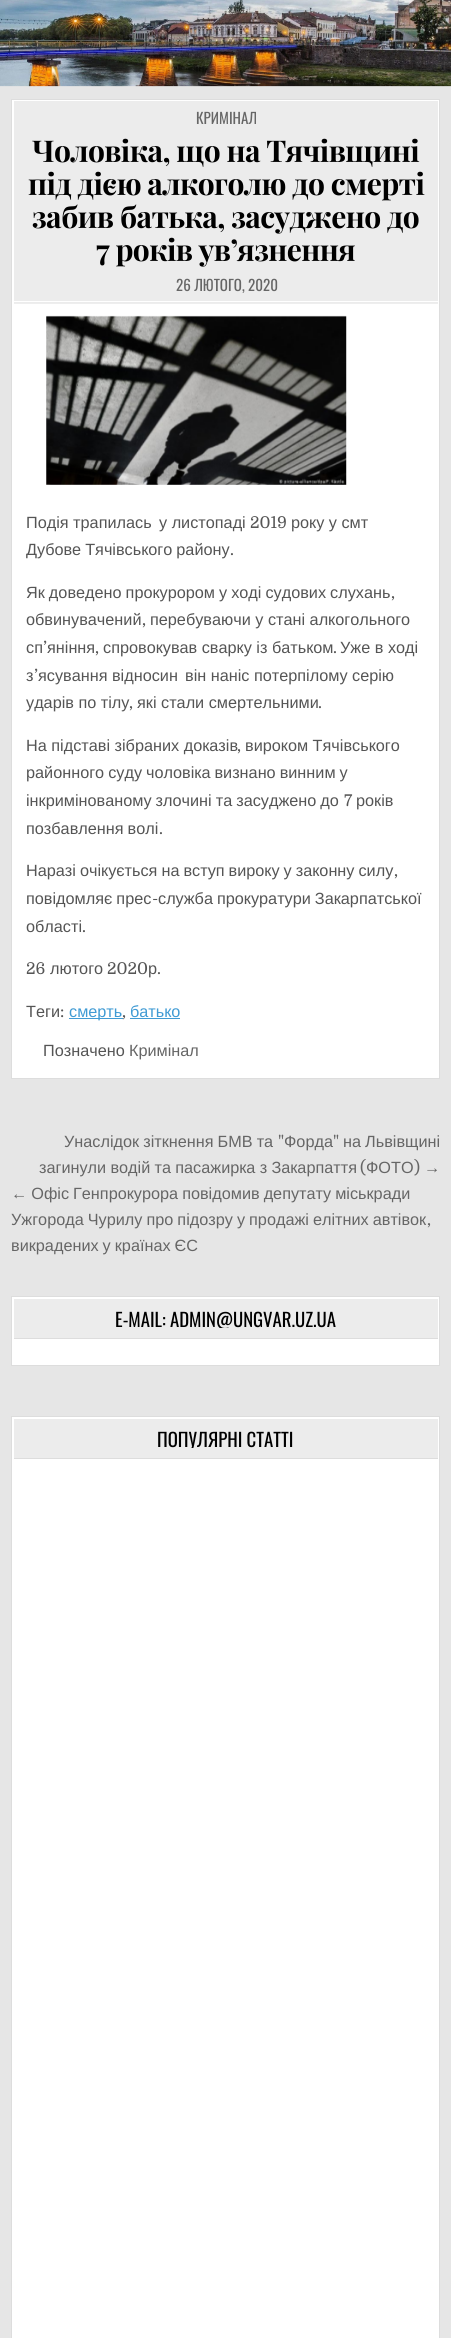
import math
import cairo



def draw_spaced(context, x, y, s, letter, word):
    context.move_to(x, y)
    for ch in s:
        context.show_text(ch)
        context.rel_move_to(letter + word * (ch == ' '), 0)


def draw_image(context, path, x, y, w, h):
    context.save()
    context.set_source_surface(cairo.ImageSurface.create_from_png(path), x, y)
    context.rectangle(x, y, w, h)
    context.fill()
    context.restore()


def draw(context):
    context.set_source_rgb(230 / 255, 230 / 255, 230 / 255)
    context.paint()
    draw_image(context, "images/1.png", 0, 0, 451, 87)
    context.set_source_rgb(1, 1, 1)
    context.rectangle(11.5, 99.5, 428, 979)
    context.fill_preserve()
    context.set_source_rgb(221 / 255, 221 / 255, 221 / 255)
    context.set_line_width(1)
    context.stroke()
    context.set_source_rgb(236 / 255, 236 / 255, 236 / 255)
    context.rectangle(14, 101, 424, 202)
    context.fill()
    context.set_source_rgb(238 / 255, 238 / 255, 238 / 255)
    context.rectangle(14, 303, 424, 1)
    context.fill()
    context.set_source_rgb(1, 1, 1)
    context.rectangle(14, 301, 424, 1)
    context.fill()
    draw_image(context, "images/2.png", 46, 315, 301, 170)
    context.set_source_rgb(64 / 255, 155 / 255, 212 / 255)
    context.rectangle(69, 1018, 54, 1)
    context.fill()
    context.rectangle(130, 1018, 50, 1)
    context.fill()
    context.set_source_rgb(1, 1, 1)
    context.rectangle(11.5, 1296.5, 428, 69)
    context.fill_preserve()
    context.set_source_rgb(221 / 255, 221 / 255, 221 / 255)
    context.stroke()
    context.set_source_rgb(236 / 255, 236 / 255, 236 / 255)
    context.rectangle(14, 1299, 424, 39)
    context.fill()
    context.set_source_rgb(221 / 255, 221 / 255, 221 / 255)
    context.rectangle(14, 1338, 424, 1)
    context.fill()
    context.set_source_rgb(1, 1, 1)
    context.rectangle(11.5, 1416.5, 428, 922)
    context.fill_preserve()
    context.set_source_rgb(221 / 255, 221 / 255, 221 / 255)
    context.stroke()
    context.set_source_rgb(236 / 255, 236 / 255, 236 / 255)
    context.rectangle(14, 1419, 424, 39)
    context.fill()
    context.set_source_rgb(221 / 255, 221 / 255, 221 / 255)
    context.rectangle(14, 1458, 424, 1)
    context.fill()
    context.select_font_face("Oswald")
    context.set_font_size(15)
    context.set_source_rgb(102 / 255, 102 / 255, 102 / 255)
    context.move_to(196, 124)
    context.show_text("КРИМІНАЛ")
    context.select_font_face("Playfair Display", cairo.FontSlant.NORMAL, cairo.FontWeight.BOLD)
    context.set_font_size(30)
    context.set_source_rgb(0, 0, 0)
    draw_spaced(context, 32, 162, "Чоловіка, що на Тячівщині", -0.6, 0)
    draw_spaced(context, 28, 195, "під дією алкоголю до смерті", -0.6, 0)
    draw_spaced(context, 32, 228, "забив батька, засуджено до", -0.6, 0)
    draw_spaced(context, 96, 261, "7 років ув’язнення", -0.6, 0)
    context.select_font_face("Oswald")
    context.set_font_size(15)
    context.set_source_rgb(102 / 255, 102 / 255, 102 / 255)
    context.move_to(176, 291)
    context.show_text("26 ЛЮТОГО, 2020")
    context.select_font_face("Liberation Sans")
    context.set_font_size(16.25)
    context.set_source_rgb(85 / 255, 85 / 255, 85 / 255)
    context.move_to(26, 528)
    context.show_text("Подія трапилась")
    context.move_to(159, 528)
    context.show_text("у листопаді")
    context.select_font_face("Domine")
    context.move_to(250, 528)
    context.show_text("2019")
    context.select_font_face("Liberation Sans")
    context.move_to(291, 528)
    context.show_text("року у смт")
    draw_spaced(context, 26, 555, "Дубове Тячівського району", 0, -0.5)
    context.select_font_face("Domine")
    context.move_to(230, 555)
    context.show_text(".")
    context.select_font_face("Liberation Sans")
    draw_spaced(context, 26, 598, "Як доведено прокурором у ході судових слухань", 0, -0.5)
    context.select_font_face("Domine")
    context.move_to(391, 598)
    context.show_text(",")
    context.select_font_face("Liberation Sans")
    context.move_to(26, 625)
    context.show_text("обвинувачений")
    context.select_font_face("Domine")
    context.move_to(142, 625)
    context.show_text(",")
    context.select_font_face("Liberation Sans")
    context.move_to(150, 625)
    context.show_text("перебуваючи у стані алкогольного")
    context.move_to(26, 653)
    context.show_text("сп")
    context.select_font_face("Domine")
    context.move_to(43, 653)
    context.show_text("’")
    context.select_font_face("Liberation Sans")
    context.move_to(47, 653)
    context.show_text("яніння")
    context.select_font_face("Domine")
    context.move_to(95, 653)
    context.show_text(",")
    context.select_font_face("Liberation Sans")
    context.move_to(103, 653)
    context.show_text("спровокував сварку із батьком")
    context.select_font_face("Domine")
    context.move_to(333, 653)
    context.show_text(".")
    context.select_font_face("Liberation Sans")
    context.move_to(340, 653)
    context.show_text("Уже в ході")
    context.move_to(26, 681)
    context.show_text("з")
    context.select_font_face("Domine")
    context.move_to(34, 681)
    context.show_text("’")
    context.select_font_face("Liberation Sans")
    context.move_to(38, 681)
    context.show_text("ясування відносин")
    context.move_to(185, 681)
    context.show_text("він наніс потерпілому серію")
    context.move_to(26, 708)
    context.show_text("ударів по тілу")
    context.select_font_face("Domine")
    context.move_to(129, 708)
    context.show_text(",")
    context.select_font_face("Liberation Sans")
    context.move_to(137, 708)
    context.show_text("які стали смертельними")
    context.select_font_face("Domine")
    context.move_to(318, 708)
    context.show_text(".")
    context.select_font_face("Liberation Sans")
    context.move_to(26, 751)
    context.show_text("На підставі зібраних доказів")
    context.select_font_face("Domine")
    context.move_to(237, 751)
    context.show_text(",")
    context.select_font_face("Liberation Sans")
    context.move_to(245, 751)
    context.show_text("вироком Тячівського")
    draw_spaced(context, 26, 778, "районного суду чоловіка визнано винним у", 0, -0.5)
    draw_spaced(context, 26, 806, "інкримінованому злочині та засуджено до", 0, -0.5)
    context.select_font_face("Domine")
    context.move_to(344, 806)
    context.show_text("7")
    context.select_font_face("Liberation Sans")
    context.move_to(356, 806)
    context.show_text("років")
    draw_spaced(context, 26, 834, "позбавлення волі", 0, -0.5)
    context.select_font_face("Domine")
    context.move_to(159, 834)
    context.show_text(".")
    context.select_font_face("Liberation Sans")
    draw_spaced(context, 26, 876, "Наразі очікується на вступ вироку у законну силу", 0, -0.5)
    context.select_font_face("Domine")
    context.move_to(394, 876)
    context.show_text(",")
    context.select_font_face("Liberation Sans")
    draw_spaced(context, 26, 904, "повідомляє прес", 0, -0.5)
    context.select_font_face("Domine")
    context.move_to(152, 904)
    context.show_text("-")
    context.select_font_face("Liberation Sans")
    draw_spaced(context, 158, 904, "служба прокуратури Закарпатської", 0, -0.5)
    context.move_to(26, 932)
    context.show_text("області")
    context.select_font_face("Domine")
    context.move_to(82, 932)
    context.show_text(".")
    context.move_to(26, 974)
    context.show_text("26")
    context.select_font_face("Liberation Sans")
    context.move_to(50, 974)
    context.show_text("лютого")
    context.select_font_face("Domine")
    context.move_to(107, 974)
    context.show_text("2020")
    context.select_font_face("Liberation Sans")
    context.move_to(148, 974)
    context.show_text("р")
    context.select_font_face("Domine")
    context.move_to(157, 974)
    context.show_text(".")
    context.select_font_face("Liberation Sans")
    context.move_to(26, 1017)
    context.show_text("Теги")
    context.select_font_face("Domine")
    context.move_to(60, 1017)
    context.show_text(":")
    context.select_font_face("Liberation Sans")
    context.set_source_rgb(64 / 255, 155 / 255, 212 / 255)
    context.move_to(69, 1017)
    context.show_text("смерть")
    context.select_font_face("Domine")
    context.set_source_rgb(85 / 255, 85 / 255, 85 / 255)
    context.move_to(122, 1017)
    context.show_text(",")
    context.select_font_face("Liberation Sans")
    context.set_source_rgb(64 / 255, 155 / 255, 212 / 255)
    context.move_to(130, 1017)
    context.show_text("батько")
    context.set_source_rgb(85 / 255, 85 / 255, 85 / 255)
    context.move_to(43, 1056)
    context.show_text("Позначено")
    context.set_source_rgb(102 / 255, 102 / 255, 102 / 255)
    context.move_to(129, 1056)
    context.show_text("Кримінал")
    draw_spaced(context, 64, 1147, "Унаслідок зіткнення БМВ та", 0, -0.5)
    context.select_font_face("Domine")
    context.move_to(278, 1147)
    context.show_text("\"")
    context.select_font_face("Liberation Sans")
    context.move_to(284, 1147)
    context.show_text("Форда")
    context.select_font_face("Domine")
    context.move_to(333, 1147)
    context.show_text("\"")
    context.select_font_face("Liberation Sans")
    draw_spaced(context, 343, 1147, "на Львівщині", 0, -0.5)
    draw_spaced(context, 39, 1173, "загинули водій та пасажирка з Закарпаття", 0, -0.25)
    context.select_font_face("Domine")
    context.move_to(360, 1173)
    context.show_text("(")
    context.select_font_face("Liberation Sans")
    context.move_to(366, 1173)
    context.show_text("ФОТО")
    context.select_font_face("Domine")
    context.move_to(414, 1173)
    context.show_text(")")
    context.select_font_face("Liberation Sans")
    context.move_to(424, 1173)
    context.show_text("→")
    draw_spaced(context, 11, 1199, "← Офіс Генпрокурора повідомив депутату міськради", 0, -0.5)
    draw_spaced(context, 11, 1225, "Ужгорода Чурилу про підозру у продажі елітних автівок", 0, -0.5)
    context.select_font_face("Domine")
    context.move_to(427, 1225)
    context.show_text(",")
    context.select_font_face("Liberation Sans")
    draw_spaced(context, 11, 1251, "викрадених у країнах ЄС", 0, -0.5)
    context.save()
    context.rectangle(26, 1309, 399, 19)
    context.clip()
    context.select_font_face("Oswald")
    context.set_font_size(18.75)
    context.set_source_rgb(0, 0, 0)
    context.move_to(115, 1327)
    context.show_text("E-MAIL: ADMIN@UNGVAR.UZ.UA")
    context.restore()
    context.save()
    context.rectangle(26, 1429, 399, 19)
    context.clip()
    context.select_font_face("Oswald")
    context.set_font_size(18.75)
    context.set_source_rgb(0, 0, 0)
    context.move_to(157, 1447)
    context.show_text("ПОПУЛЯРНІ СТАТТІ")
    context.restore()


surface = cairo.ImageSurface(cairo.Format.RGB24, 451, 2338)
context = cairo.Context(surface)
options = cairo.FontOptions()
options.set_hint_metrics(cairo.HintMetrics.OFF)
options.set_hint_style(cairo.HintStyle.NONE)
context.set_font_options(options)
context.set_miter_limit(4)
draw(context)
surface.write_to_png("out.png")
